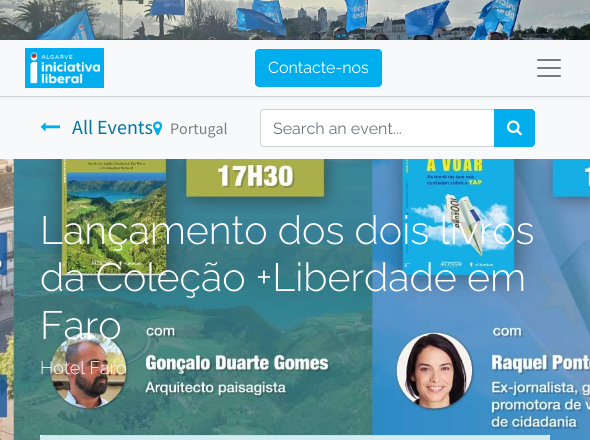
import math
import cairo



def rounded_rect(context, x, y, w, h, r):
    context.new_sub_path()
    for i, (u, v) in enumerate([(x + w - r, y + h - r), (x + r, y + h - r), (x + r, y + r), (x + w - r, y + r)]):
        context.arc(u, v, r, i * math.pi / 2, (i + 1) * math.pi / 2)
    context.close_path()


def draw_shadow(context, x, y, w, h, r, blur, alpha):
    context.push_group_with_content(cairo.Content.ALPHA)
    context.set_operator(cairo.Operator.SOURCE)
    for i in range(15, -16, -2):
        e = blur * i / 6
        if min(w, h) + 2 * e > 0:
            context.set_source_rgba(0, 0, 0, alpha * math.erfc((i - 1) / 8.5) / 2)
            rounded_rect(context, x - e, y - e, w + 2 * e, h + 2 * e, max(0, min(r + e + blur * .6, min(w, h) / 2 + e)))
            context.fill()
    context.mask(context.pop_group())


def draw_image(context, path, x, y, w, h):
    context.save()
    context.set_source_surface(cairo.ImageSurface.create_from_png(path), x, y)
    context.rectangle(x, y, w, h)
    context.fill()
    context.restore()


def draw(context):
    context.set_source_rgb(1, 1, 1)
    context.paint()
    draw_image(context, "images/1.png", 0, 0, 590, 40)
    context.set_source_rgb(0, 0, 0)
    draw_shadow(context, 0, 98, 590, 63, 0, 2, 0.07)
    context.set_source_rgb(248 / 255, 249 / 255, 250 / 255)
    context.rectangle(0, 97, 590, 62)
    context.fill()
    context.set_source_rgb(222 / 255, 226 / 255, 230 / 255)
    context.rectangle(0, 96, 590, 1)
    context.fill()
    context.set_source_rgb(0, 0, 0)
    draw_shadow(context, 0, 42, 590, 56, 0, 2, 0.07)
    context.set_source_rgb(248 / 255, 249 / 255, 250 / 255)
    context.rectangle(0, 40, 590, 56)
    context.fill()
    draw_image(context, "images/2.png", 25, 48, 79, 40)
    context.set_source_rgb(0, 174 / 255, 238 / 255)
    rounded_rect(context, 255.5, 49.5, 126, 37, 3.5)
    context.fill_preserve()
    context.set_line_width(1)
    context.stroke()
    draw_image(context, "images/3.png", 537, 59, 24, 18)
    draw_image(context, "images/4.png", 40, 122, 20, 10)
    draw_image(context, "images/5.png", 153, 121, 10, 15)
    context.set_source_rgb(1, 1, 1)
    context.new_path()
    context.move_to(264, 109.5)
    context.line_to(494.5, 109.5)
    context.line_to(494.5, 146.5)
    context.line_to(264, 146.5)
    context.curve_to(262, 146.5, 260.5, 145, 260.5, 143)
    context.line_to(260.5, 113)
    context.curve_to(260.5, 111, 262, 109.5, 264, 109.5)
    context.close_path()
    context.fill_preserve()
    context.set_source_rgb(206 / 255, 212 / 255, 218 / 255)
    context.stroke()
    context.set_source_rgb(0, 174 / 255, 238 / 255)
    context.new_path()
    context.move_to(494.5, 109.5)
    context.line_to(531, 109.5)
    context.curve_to(533, 109.5, 534.5, 111, 534.5, 113)
    context.line_to(534.5, 143)
    context.curve_to(534.5, 145, 533, 146.5, 531, 146.5)
    context.line_to(494.5, 146.5)
    context.close_path()
    context.fill_preserve()
    context.stroke()
    draw_image(context, "images/6.png", 507, 120, 15, 16)
    draw_image(context, "images/7.png", 0, 159, 590, 281)
    context.set_source_rgb(1, 1, 1)
    context.rectangle(40, 435, 510, 4)
    context.fill()
    context.set_source_rgb(209 / 255, 236 / 255, 241 / 255)
    context.new_path()
    context.move_to(44, 435)
    context.line_to(546, 435)
    context.curve_to(548, 435, 550, 437, 550, 439)
    context.line_to(550, 440)
    context.line_to(40, 440)
    context.line_to(40, 439)
    context.curve_to(40, 437, 42, 435, 44, 435)
    context.close_path()
    context.fill()
    rounded_rect(context, 40.5, 435.5, 509, 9, 3.5)
    context.set_source_rgb(190 / 255, 229 / 255, 235 / 255)
    context.stroke()
    context.select_font_face("Raleway")
    context.set_font_size(16)
    context.set_source_rgb(1, 1, 1)
    context.move_to(268, 73)
    context.show_text("Contacte-nos")
    context.select_font_face("Source Sans Pro")
    context.set_font_size(20)
    context.set_source_rgb(0, 118 / 255, 162 / 255)
    context.move_to(72, 134)
    context.show_text("All Events")
    context.set_font_size(16)
    context.set_source_rgb(124 / 255, 125 / 255, 125 / 255)
    context.move_to(170, 134)
    context.show_text("Portugal")
    context.select_font_face("Raleway")
    context.set_source_rgb(108 / 255, 117 / 255, 125 / 255)
    context.move_to(273, 134)
    context.show_text("Search an event...")
    context.select_font_face("Raleway Light")
    context.set_font_size(39.5)
    context.set_source_rgb(1, 1, 1)
    context.move_to(40, 244)
    context.show_text("Lançamento dos dois livros")
    context.move_to(40, 291)
    context.show_text("da Coleção +Liberdade em")
    context.move_to(40, 339)
    context.show_text("Faro")
    context.set_font_size(18)
    context.move_to(40, 374)
    context.show_text("Hotel Faro")


surface = cairo.ImageSurface(cairo.Format.RGB24, 590, 440)
context = cairo.Context(surface)
options = cairo.FontOptions()
options.set_hint_metrics(cairo.HintMetrics.OFF)
options.set_hint_style(cairo.HintStyle.NONE)
context.set_font_options(options)
context.set_miter_limit(4)
draw(context)
surface.write_to_png("out.png")
